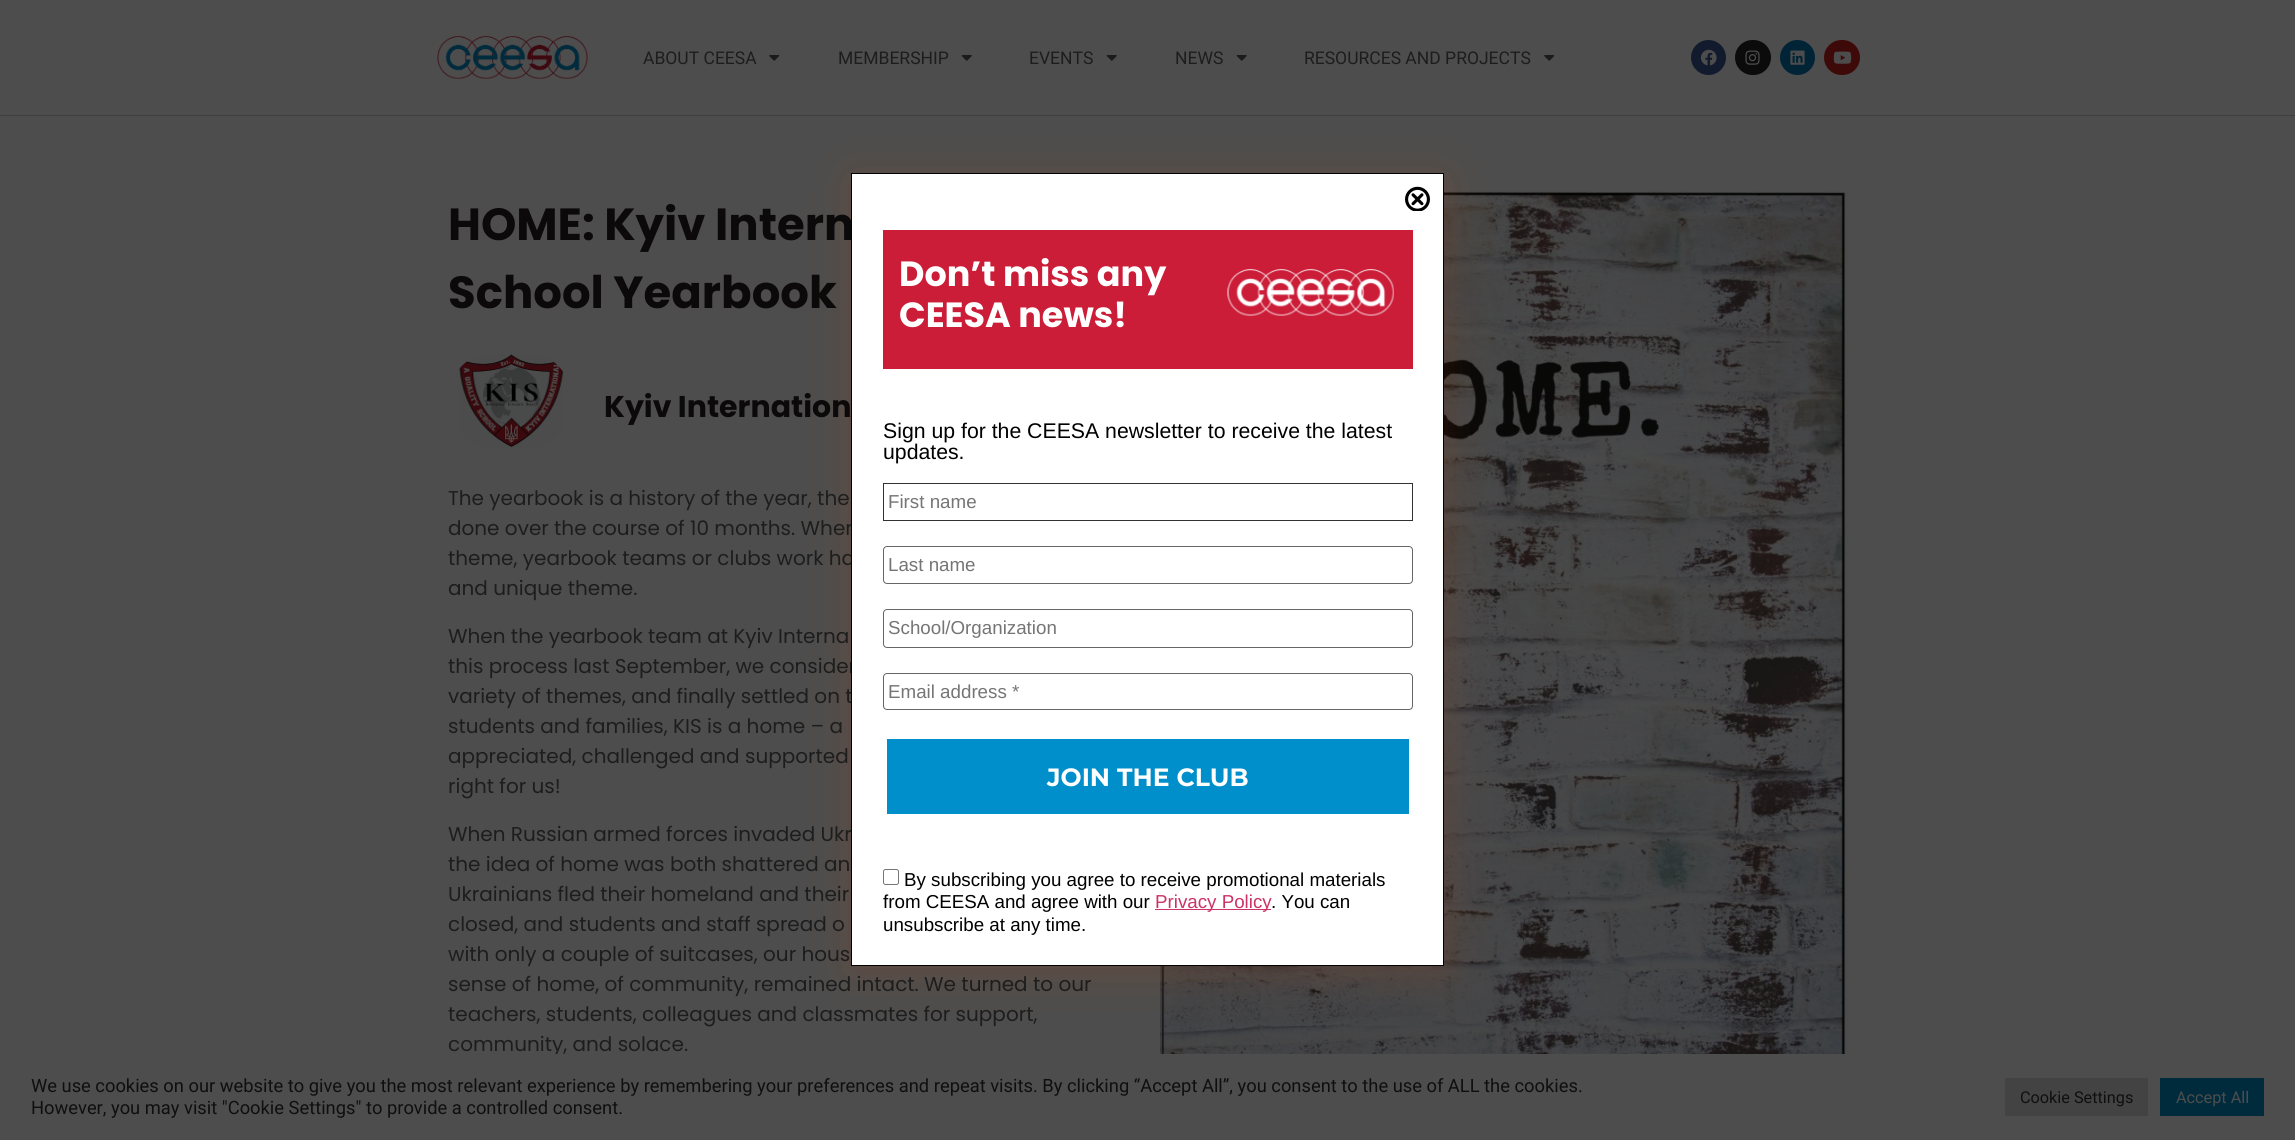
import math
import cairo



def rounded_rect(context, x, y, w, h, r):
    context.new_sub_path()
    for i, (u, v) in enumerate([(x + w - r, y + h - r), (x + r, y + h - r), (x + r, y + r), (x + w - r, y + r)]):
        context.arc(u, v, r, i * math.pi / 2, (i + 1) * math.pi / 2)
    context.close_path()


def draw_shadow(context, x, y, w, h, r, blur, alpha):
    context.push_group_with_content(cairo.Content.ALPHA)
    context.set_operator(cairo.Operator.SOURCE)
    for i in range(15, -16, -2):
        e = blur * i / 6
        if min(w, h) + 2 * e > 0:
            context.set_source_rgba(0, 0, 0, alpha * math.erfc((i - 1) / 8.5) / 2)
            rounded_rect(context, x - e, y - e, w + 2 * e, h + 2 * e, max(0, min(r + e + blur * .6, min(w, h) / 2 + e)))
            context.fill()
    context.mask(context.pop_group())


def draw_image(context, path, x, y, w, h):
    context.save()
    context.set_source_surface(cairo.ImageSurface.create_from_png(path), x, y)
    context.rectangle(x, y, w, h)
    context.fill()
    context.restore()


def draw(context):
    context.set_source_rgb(77 / 255, 77 / 255, 77 / 255)
    context.paint()
    context.set_source_rgb(63 / 255, 63 / 255, 63 / 255)
    context.rectangle(0, 115, 2295, 1)
    context.fill()
    draw_image(context, "images/1.png", 437, 36, 151, 43)
    draw_image(context, "images/2.png", 769, 55, 11, 6)
    draw_image(context, "images/3.png", 961, 55, 11, 6)
    draw_image(context, "images/3.png", 1106, 55, 11, 6)
    draw_image(context, "images/3.png", 1236, 55, 11, 6)
    draw_image(context, "images/2.png", 1544, 55, 11, 6)
    context.set_source_rgb(18 / 255, 27 / 255, 46 / 255)
    context.arc(1708.5, 57.5, 17.5, 0, 2 * math.pi)
    context.fill()
    draw_image(context, "images/4.png", 1700, 49, 17, 17)
    context.set_source_rgb(11 / 255, 11 / 255, 11 / 255)
    rounded_rect(context, 1735, 40, 36, 35, 17.5)
    context.fill()
    draw_image(context, "images/5.png", 1745, 50, 15, 15)
    context.set_source_rgb(0, 36 / 255, 54 / 255)
    context.arc(1797.5, 57.5, 17.5, 0, 2 * math.pi)
    context.fill()
    draw_image(context, "images/6.png", 1790, 50, 15, 15)
    context.set_source_rgb(62 / 255, 10 / 255, 9 / 255)
    rounded_rect(context, 1824, 40, 36, 35, 17.5)
    context.fill()
    draw_image(context, "images/7.png", 1833, 51, 19, 13)
    draw_image(context, "images/8.png", 459, 354, 104, 94)
    draw_image(context, "images/9.png", 1160, 191, 688, 863)
    context.set_source_rgb(195 / 255, 65 / 255, 2 / 255)
    draw_shadow(context, 851, 178, 593, 793, 0, 22, 0.2)
    context.set_source_rgb(67 / 255, 67 / 255, 67 / 255)
    context.rectangle(2005, 1078, 143, 38)
    context.fill()
    context.set_source_rgb(0, 43 / 255, 61 / 255)
    context.rectangle(2160, 1078, 104, 38)
    context.fill()
    context.select_font_face("Roboto")
    context.set_font_size(17.5)
    context.set_source_rgb(29 / 255, 29 / 255, 29 / 255)
    context.move_to(643, 64)
    context.show_text("ABOUT CEESA")
    context.move_to(838, 64)
    context.show_text("MEMBERSHIP")
    context.move_to(1029, 64)
    context.show_text("EVENTS")
    context.move_to(1175, 64)
    context.show_text("NEWS")
    context.move_to(1304, 64)
    context.show_text("RESOURCES AND PROJECTS")
    context.select_font_face("Poppins", cairo.FontSlant.NORMAL, cairo.FontWeight.BOLD)
    context.set_font_size(45)
    context.set_source_rgb(11 / 255, 9 / 255, 10 / 255)
    context.move_to(448, 240)
    context.show_text("HOME: Kyiv Intern")
    context.move_to(448, 308)
    context.show_text("School Yearbook")
    context.set_font_size(30)
    context.move_to(604, 417)
    context.show_text("Kyiv Internation")
    context.select_font_face("Poppins")
    context.set_font_size(20)
    context.set_source_rgb(29 / 255, 29 / 255, 29 / 255)
    context.move_to(448, 505)
    context.show_text("The yearbook is a history of the year, the")
    context.move_to(448, 535)
    context.show_text("done over the course of 10 months. When")
    context.move_to(448, 565)
    context.show_text("theme, yearbook teams or clubs work ha")
    context.move_to(448, 595)
    context.show_text("and unique theme.")
    context.move_to(448, 643)
    context.show_text("When the yearbook team at Kyiv Interna")
    context.move_to(448, 673)
    context.show_text("this process last September, we consider")
    context.move_to(448, 703)
    context.show_text("variety of themes, and finally settled on t")
    context.move_to(448, 733)
    context.show_text("students and families, KIS is a home – a")
    context.move_to(448, 763)
    context.show_text("appreciated, challenged and supported")
    context.move_to(448, 793)
    context.show_text("right for us!")
    context.move_to(448, 841)
    context.show_text("When Russian armed forces invaded Ukr")
    context.move_to(448, 871)
    context.show_text("the idea of home was both shattered an")
    context.move_to(448, 901)
    context.show_text("Ukrainians fled their homeland and their")
    context.move_to(448, 931)
    context.show_text("closed, and students and staff spread o")
    context.move_to(448, 961)
    context.show_text("with only a couple of suitcases, our hous")
    context.move_to(448, 991)
    context.show_text("sense of home, of community, remained intact. We turned to our")
    context.move_to(448, 1021)
    context.show_text("teachers, students, colleagues and classmates for support,")
    context.move_to(448, 1051)
    context.show_text("community, and solace.")
    context.set_source_rgb(1, 1, 1)
    context.rectangle(851.5, 173.5, 592, 792)
    context.fill_preserve()
    context.set_source_rgb(0, 0, 0)
    context.set_line_width(1)
    context.stroke()
    draw_image(context, "images/10.png", 1405, 186, 25, 25)
    context.set_source_rgb(203 / 255, 28 / 255, 56 / 255)
    context.rectangle(883, 230, 530, 139)
    context.fill()
    context.select_font_face("Poppins", cairo.FontSlant.NORMAL, cairo.FontWeight.BOLD)
    context.set_font_size(35)
    context.set_source_rgb(1, 1, 1)
    context.move_to(899, 286)
    context.show_text("Don’t miss any")
    context.move_to(899, 327)
    context.show_text("CEESA news!")
    draw_image(context, "images/11.png", 1227, 269, 167, 47)
    context.select_font_face("Liberation Sans")
    context.set_font_size(21.25)
    context.set_source_rgb(0, 0, 0)
    context.move_to(883, 438)
    context.show_text("Sign up for the CEESA newsletter to receive the latest")
    context.move_to(883, 459)
    context.show_text("updates.")
    context.rectangle(883.5, 483.5, 529, 37)
    context.set_source_rgb(49 / 255, 49 / 255, 49 / 255)
    context.stroke()
    context.set_font_size(18.75)
    context.set_source_rgb(117 / 255, 117 / 255, 117 / 255)
    context.move_to(888, 508)
    context.show_text("First name")
    rounded_rect(context, 883.5, 546.5, 529, 37, 3.5)
    context.set_source_rgb(102 / 255, 102 / 255, 102 / 255)
    context.stroke()
    context.set_source_rgb(117 / 255, 117 / 255, 117 / 255)
    context.move_to(888, 571)
    context.show_text("Last name")
    rounded_rect(context, 883.5, 609.5, 529, 38, 3.5)
    context.set_source_rgb(102 / 255, 102 / 255, 102 / 255)
    context.stroke()
    context.set_source_rgb(117 / 255, 117 / 255, 117 / 255)
    context.move_to(888, 634)
    context.show_text("School/Organization")
    rounded_rect(context, 883.5, 673.5, 529, 36, 3.5)
    context.set_source_rgb(102 / 255, 102 / 255, 102 / 255)
    context.stroke()
    context.set_source_rgb(117 / 255, 117 / 255, 117 / 255)
    context.move_to(888, 698)
    context.show_text("Email address *")
    context.set_source_rgb(0, 143 / 255, 203 / 255)
    context.rectangle(887, 739, 522, 75)
    context.fill()
    context.select_font_face("Montserrat", cairo.FontSlant.NORMAL, cairo.FontWeight.BOLD)
    context.set_font_size(25)
    context.set_source_rgb(1, 1, 1)
    context.move_to(1047, 786)
    context.show_text("JOIN THE CLUB")
    rounded_rect(context, 883.5, 869.5, 15, 15, 2)
    context.set_source_rgb(118 / 255, 118 / 255, 118 / 255)
    context.stroke()
    context.select_font_face("Liberation Sans")
    context.set_font_size(18.75)
    context.set_source_rgb(0, 0, 0)
    context.move_to(904, 886)
    context.show_text("By subscribing you agree to receive promotional materials")
    context.move_to(883, 908)
    context.show_text("from CEESA and agree with our")
    context.set_source_rgb(204 / 255, 51 / 255, 102 / 255)
    context.rectangle(1155, 909, 116, 1)
    context.fill()
    context.move_to(1155, 908)
    context.show_text("Privacy Policy")
    context.set_source_rgb(0, 0, 0)
    context.move_to(1271, 908)
    context.show_text(". You can")
    context.move_to(883, 931)
    context.show_text("unsubscribe at any time.")
    context.set_source_rgb(77 / 255, 77 / 255, 77 / 255)
    context.rectangle(554, 1054, 3, 3)
    context.fill()
    context.select_font_face("Roboto")
    context.set_font_size(18.33)
    context.set_source_rgb(15 / 255, 15 / 255, 15 / 255)
    context.move_to(31, 1092)
    context.show_text("We use cookies on our website to give you the most relevant experience by remembering your preferences and repeat visits. By clicking “Accept All”, you consent to the use of ALL the cookies.")
    context.move_to(31, 1114)
    context.show_text("However, you may visit \"Cookie Settings\" to provide a controlled consent.")
    context.set_font_size(16.25)
    context.move_to(2020, 1103)
    context.show_text("Cookie Settings")
    context.set_source_rgb(77 / 255, 77 / 255, 77 / 255)
    context.move_to(2176, 1103)
    context.show_text("Accept All")


surface = cairo.ImageSurface(cairo.Format.RGB24, 2295, 1140)
context = cairo.Context(surface)
options = cairo.FontOptions()
options.set_hint_metrics(cairo.HintMetrics.OFF)
options.set_hint_style(cairo.HintStyle.NONE)
context.set_font_options(options)
context.set_miter_limit(4)
draw(context)
surface.write_to_png("out.png")
